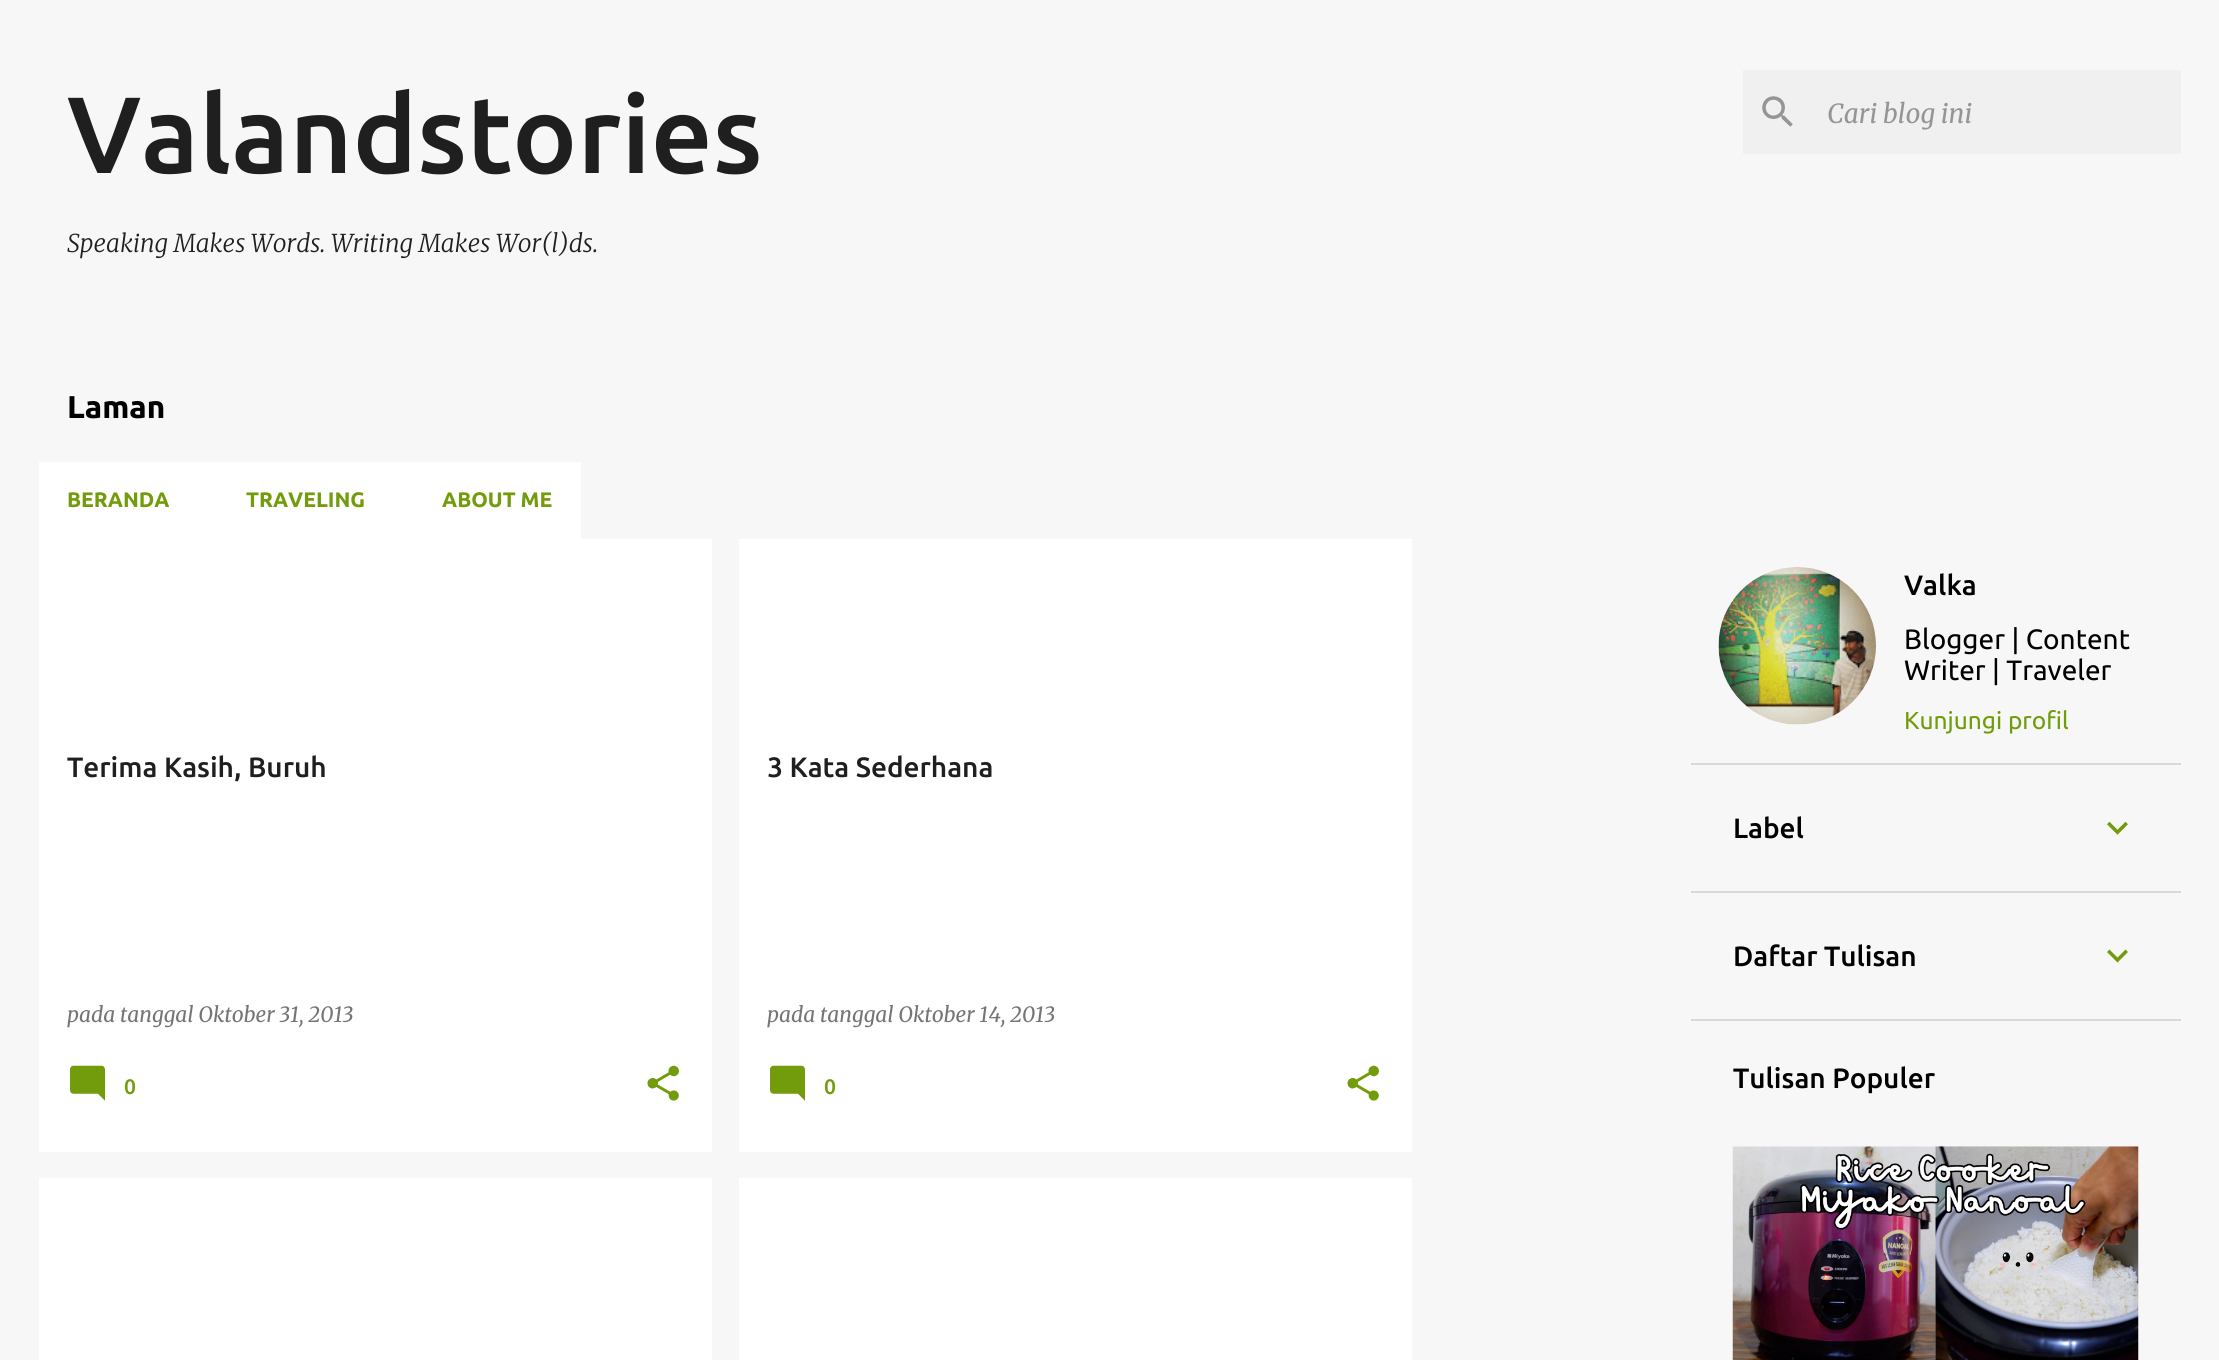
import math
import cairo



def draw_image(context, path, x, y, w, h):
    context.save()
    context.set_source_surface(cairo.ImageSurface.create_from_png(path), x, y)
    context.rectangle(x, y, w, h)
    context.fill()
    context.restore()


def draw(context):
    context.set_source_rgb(247 / 255, 247 / 255, 247 / 255)
    context.paint()
    context.set_source_rgb(240 / 255, 240 / 255, 240 / 255)
    context.rectangle(1743, 70, 438, 84)
    context.fill()
    draw_image(context, "images/1.png", 1762, 96, 31, 31)
    context.set_source_rgb(1, 1, 1)
    context.rectangle(39, 462, 542, 77)
    context.fill()
    context.rectangle(39, 539, 673, 613)
    context.fill()
    draw_image(context, "images/2.png", 70, 1065, 35, 36)
    draw_image(context, "images/3.png", 647, 1065, 32, 36)
    context.rectangle(739, 539, 673, 613)
    context.fill()
    draw_image(context, "images/2.png", 770, 1065, 35, 36)
    draw_image(context, "images/3.png", 1347, 1065, 32, 36)
    context.rectangle(39, 1178, 673, 182)
    context.fill()
    context.rectangle(739, 1178, 673, 182)
    context.fill()
    draw_image(context, "images/4.png", 1718, 567, 158, 158)
    context.set_source_rgb(217 / 255, 217 / 255, 217 / 255)
    context.rectangle(1691, 763, 490, 2)
    context.fill()
    draw_image(context, "images/5.png", 2107, 821, 21, 14)
    context.rectangle(1691, 891, 490, 2)
    context.fill()
    draw_image(context, "images/6.png", 2107, 949, 21, 14)
    context.rectangle(1691, 1019, 490, 2)
    context.fill()
    draw_image(context, "images/7.png", 1732, 1146, 407, 214)
    context.select_font_face("Ubuntu Medium")
    context.set_font_size(108.5)
    context.set_source_rgb(31 / 255, 31 / 255, 31 / 255)
    context.move_to(67, 173)
    context.show_text("Valandstories")
    context.select_font_face("Merriweather Light", cairo.FontSlant.ITALIC)
    context.set_font_size(24.5)
    context.move_to(67, 252)
    context.show_text("Speaking Makes Words. Writing Makes Wor(l)ds.")
    context.select_font_face("Merriweather", cairo.FontSlant.ITALIC)
    context.set_font_size(26.25)
    context.set_source_rgb(149 / 255, 149 / 255, 149 / 255)
    context.move_to(1827, 123)
    context.show_text("Cari blog ini")
    context.select_font_face("Ubuntu", cairo.FontSlant.NORMAL, cairo.FontWeight.BOLD)
    context.set_font_size(31.5)
    context.set_source_rgb(0, 0, 0)
    context.move_to(67, 418)
    context.show_text("Laman")
    context.set_font_size(21)
    context.set_source_rgb(114 / 255, 156 / 255, 11 / 255)
    context.move_to(67, 507)
    context.show_text("BERANDA")
    context.move_to(246, 507)
    context.show_text("TRAVELING")
    context.move_to(442, 507)
    context.show_text("ABOUT ME")
    context.save()
    context.rectangle(67, 746, 617, 84)
    context.clip()
    context.select_font_face("Ubuntu Medium")
    context.set_font_size(28)
    context.set_source_rgb(31 / 255, 31 / 255, 31 / 255)
    context.move_to(67, 777)
    context.show_text("Terima Kasih, Buruh")
    context.restore()
    context.select_font_face("Merriweather", cairo.FontSlant.ITALIC)
    context.set_source_rgb(117 / 255, 117 / 255, 117 / 255)
    context.move_to(67, 1022)
    context.show_text("pada tanggal Oktober 31, 2013")
    context.select_font_face("Ubuntu Medium")
    context.set_source_rgb(114 / 255, 156 / 255, 11 / 255)
    context.move_to(124, 1094)
    context.show_text("0")
    context.set_font_size(28)
    context.set_source_rgb(31 / 255, 31 / 255, 31 / 255)
    context.move_to(767, 777)
    context.show_text("3 Kata Sederhana")
    context.select_font_face("Merriweather", cairo.FontSlant.ITALIC)
    context.set_font_size(21)
    context.set_source_rgb(117 / 255, 117 / 255, 117 / 255)
    context.move_to(767, 1022)
    context.show_text("pada tanggal Oktober 14, 2013")
    context.select_font_face("Ubuntu Medium")
    context.set_source_rgb(114 / 255, 156 / 255, 11 / 255)
    context.move_to(824, 1094)
    context.show_text("0")
    context.set_font_size(28)
    context.set_source_rgb(0, 0, 0)
    context.move_to(1904, 595)
    context.show_text("Valka")
    context.select_font_face("Ubuntu")
    context.move_to(1904, 649)
    context.show_text("Blogger | Content")
    context.move_to(1904, 680)
    context.show_text("Writer | Traveler")
    context.set_font_size(24.5)
    context.set_source_rgb(114 / 255, 156 / 255, 11 / 255)
    context.move_to(1904, 729)
    context.show_text("Kunjungi profil")
    context.select_font_face("Ubuntu Medium")
    context.set_font_size(28)
    context.set_source_rgb(0, 0, 0)
    context.move_to(1733, 838)
    context.show_text("Label")
    context.move_to(1733, 966)
    context.show_text("Daftar Tulisan")
    context.move_to(1733, 1088)
    context.show_text("Tulisan Populer")


surface = cairo.ImageSurface(cairo.Format.RGB24, 2219, 1360)
context = cairo.Context(surface)
options = cairo.FontOptions()
options.set_hint_metrics(cairo.HintMetrics.OFF)
options.set_hint_style(cairo.HintStyle.NONE)
context.set_font_options(options)
context.set_miter_limit(4)
draw(context)
surface.write_to_png("out.png")
